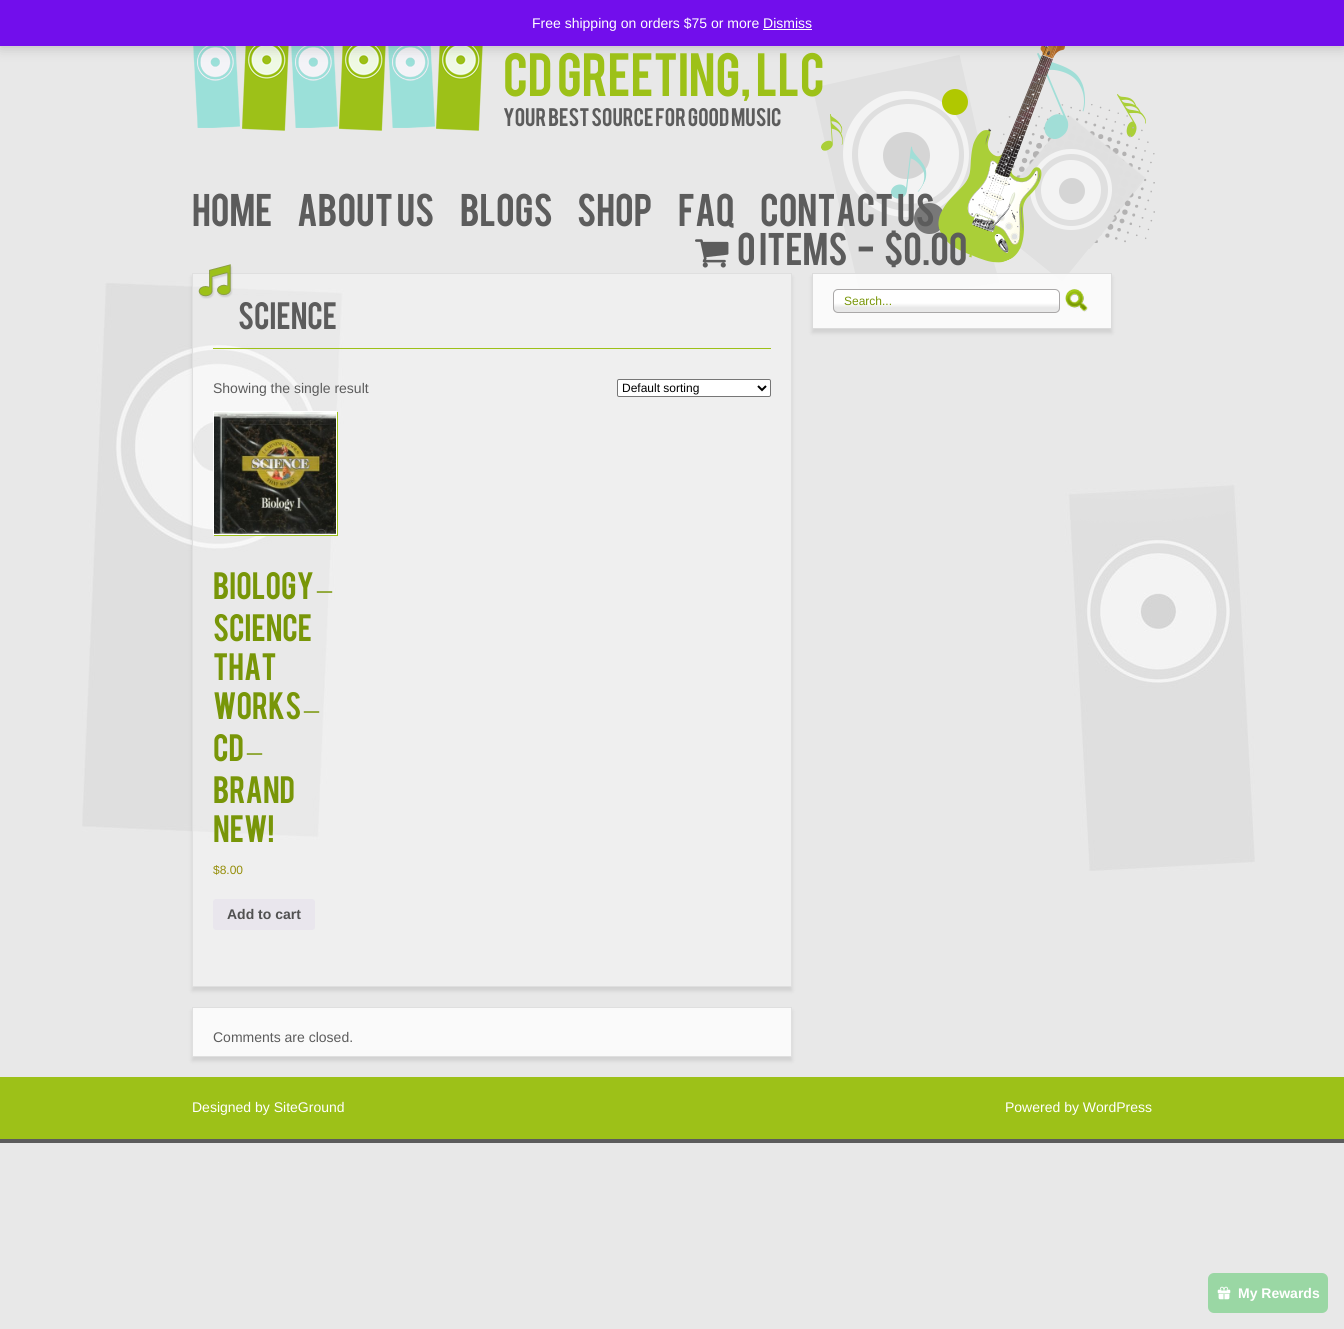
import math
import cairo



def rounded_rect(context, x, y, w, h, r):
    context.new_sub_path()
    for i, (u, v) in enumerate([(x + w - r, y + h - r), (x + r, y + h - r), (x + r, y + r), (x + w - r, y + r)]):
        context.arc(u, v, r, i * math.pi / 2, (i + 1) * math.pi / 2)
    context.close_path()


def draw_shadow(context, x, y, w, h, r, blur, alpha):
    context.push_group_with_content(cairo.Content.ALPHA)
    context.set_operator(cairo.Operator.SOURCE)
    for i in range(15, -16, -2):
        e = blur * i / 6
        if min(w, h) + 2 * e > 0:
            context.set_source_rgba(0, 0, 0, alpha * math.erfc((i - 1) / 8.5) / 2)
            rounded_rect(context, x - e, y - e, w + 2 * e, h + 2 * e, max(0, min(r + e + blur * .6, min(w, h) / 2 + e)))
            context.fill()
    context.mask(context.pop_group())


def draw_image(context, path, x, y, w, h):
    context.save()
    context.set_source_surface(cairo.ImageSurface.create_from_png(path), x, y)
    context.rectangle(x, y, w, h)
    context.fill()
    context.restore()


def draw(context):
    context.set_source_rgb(232 / 255, 232 / 255, 232 / 255)
    context.paint()
    draw_image(context, "images/1.png", 82, 46, 1173, 825)
    draw_image(context, "images/2.png", 193, 46, 290, 85)
    context.set_source_rgb(0, 0, 0)
    draw_shadow(context, 0, 1, 1344, 46, 0, 7, 0.2)
    context.set_source_rgb(114 / 255, 14 / 255, 236 / 255)
    context.rectangle(0, 0, 1344, 46)
    context.fill()
    draw_image(context, "images/3.png", 695, 239, 34, 29)
    context.save()
    context.set_fill_rule(cairo.FillRule.EVEN_ODD)
    context.new_path()
    context.move_to(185, 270)
    context.line_to(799, 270)
    context.line_to(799, 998)
    context.line_to(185, 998)
    context.close_path()
    context.move_to(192, 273)
    context.line_to(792, 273)
    context.line_to(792, 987)
    context.line_to(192, 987)
    context.close_path()
    context.clip()
    context.set_source_rgb(0, 0, 0)
    draw_shadow(context, 192, 277, 600, 714, 0, 2, 0.1)
    context.restore()
    context.set_source_rgba(1, 1, 1, 0.3)
    context.rectangle(192.5, 273.5, 599, 713)
    context.fill_preserve()
    context.set_source_rgb(223 / 255, 223 / 255, 223 / 255)
    context.set_line_width(1)
    context.stroke()
    draw_image(context, "images/4.png", 198, 264, 35, 35)
    context.set_source_rgb(157 / 255, 193 / 255, 24 / 255)
    context.rectangle(213, 348, 558, 1)
    context.fill()
    context.set_source_rgb(1, 1, 1)
    rounded_rect(context, 617.5, 379.5, 153, 17, 1.5)
    context.fill_preserve()
    context.set_source_rgb(118 / 255, 118 / 255, 118 / 255)
    context.stroke()
    context.new_path()
    context.move_to(758, 386)
    context.line_to(762, 390)
    context.line_to(766, 386)
    context.set_source_rgb(0, 0, 0)
    context.set_line_width(2)
    context.stroke()
    context.set_source_rgb(157 / 255, 193 / 255, 24 / 255)
    context.new_path()
    context.move_to(214, 535)
    context.line_to(214, 536)
    context.line_to(338, 536)
    context.line_to(338, 412)
    context.line_to(337, 412)
    context.line_to(337, 535)
    context.close_path()
    context.fill()
    context.rectangle(213.5, 411.5, 123, 123)
    context.set_source_rgb(1, 1, 1)
    context.set_line_width(1)
    context.stroke()
    draw_image(context, "images/5.png", 214, 412, 122, 122)
    context.set_source_rgb(233 / 255, 230 / 255, 237 / 255)
    rounded_rect(context, 213, 899, 102, 31, 3)
    context.fill()
    context.set_source_rgb(0, 0, 0)
    draw_shadow(context, 192, 1011, 600, 50, 0, 2, 0.1)
    context.set_source_rgb(250 / 255, 250 / 255, 250 / 255)
    context.rectangle(192.5, 1007.5, 599, 49)
    context.fill_preserve()
    context.set_source_rgb(223 / 255, 223 / 255, 223 / 255)
    context.stroke()
    context.save()
    context.set_fill_rule(cairo.FillRule.EVEN_ODD)
    context.new_path()
    context.move_to(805, 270)
    context.line_to(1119, 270)
    context.line_to(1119, 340)
    context.line_to(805, 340)
    context.close_path()
    context.move_to(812, 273)
    context.line_to(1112, 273)
    context.line_to(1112, 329)
    context.line_to(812, 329)
    context.close_path()
    context.clip()
    context.set_source_rgb(0, 0, 0)
    draw_shadow(context, 812, 277, 300, 56, 0, 2, 0.1)
    context.restore()
    context.set_source_rgba(1, 1, 1, 0.8)
    context.rectangle(812.5, 273.5, 299, 55)
    context.fill_preserve()
    context.set_source_rgb(219 / 255, 219 / 255, 219 / 255)
    context.stroke()
    context.save()
    rounded_rect(context, 833, 289, 227, 24, 5)
    context.clip()
    gradient = cairo.LinearGradient(947, 290, 947, 312)
    gradient.add_color_stop_rgba(0.6, 1, 1, 1, 1)
    gradient.add_color_stop_rgba(0.8, 232 / 255, 232 / 255, 232 / 255, 1)
    context.set_source(gradient)
    context.rectangle(833, 290, 227, 22)
    context.fill()
    context.restore()
    rounded_rect(context, 833.5, 289.5, 226, 23, 4.5)
    context.set_source_rgb(170 / 255, 168 / 255, 168 / 255)
    context.stroke()
    draw_image(context, "images/6.png", 1065, 289, 23, 23)
    context.set_source_rgb(157 / 255, 193 / 255, 24 / 255)
    context.rectangle(0, 1077, 1344, 62)
    context.fill()
    context.set_source_rgb(92 / 255, 92 / 255, 92 / 255)
    context.rectangle(0, 1139, 1344, 4)
    context.fill()
    context.set_source_rgb(154 / 255, 215 / 255, 164 / 255)
    rounded_rect(context, 1208, 1273, 120, 40, 6)
    context.fill()
    draw_image(context, "images/7.png", 1217, 1286, 14, 14)
    context.select_font_face("Liberation Sans")
    context.set_font_size(14)
    context.set_source_rgb(1, 1, 1)
    context.move_to(532, 28)
    context.show_text("Free shipping on orders $75 or more Dismiss")
    context.set_source_rgb(252 / 255, 251 / 255, 254 / 255)
    context.rectangle(763, 29, 49, 1)
    context.fill()
    context.select_font_face("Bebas")
    context.set_font_size(48)
    context.set_source_rgb(157 / 255, 193 / 255, 24 / 255)
    context.move_to(503, 96)
    context.show_text("CD Greeting, LLC")
    context.set_font_size(20)
    context.set_source_rgb(92 / 255, 92 / 255, 92 / 255)
    context.move_to(503, 126)
    context.show_text("Your Best Source for Good music")
    context.set_font_size(36)
    context.move_to(192, 226)
    context.show_text("Home")
    context.move_to(297, 226)
    context.show_text("About Us")
    context.move_to(460, 226)
    context.show_text("BLOGS")
    context.move_to(577, 226)
    context.show_text("Shop")
    context.move_to(678, 226)
    context.show_text("FAQ")
    context.move_to(760, 226)
    context.show_text("Contact Us")
    context.move_to(737, 265)
    context.show_text("0 items")
    context.move_to(857, 265)
    context.show_text("-")
    context.move_to(884, 265)
    context.show_text("$0.00")
    context.set_font_size(30)
    context.move_to(238, 329)
    context.show_text("Science")
    context.select_font_face("Liberation Sans")
    context.set_font_size(14)
    context.move_to(213, 393)
    context.show_text("Showing the single result")
    context.set_font_size(12)
    context.set_source_rgb(0, 0, 0)
    context.move_to(622, 392)
    context.show_text("Default sorting")
    context.select_font_face("Bebas")
    context.set_font_size(30)
    context.set_source_rgb(120 / 255, 150 / 255, 8 / 255)
    context.move_to(213, 599)
    context.show_text("Biology")
    context.select_font_face("Liberation Serif")
    context.move_to(317, 599)
    context.show_text("–")
    context.select_font_face("Bebas")
    context.move_to(213, 641)
    context.show_text("Science")
    context.move_to(213, 680)
    context.show_text("That")
    context.move_to(213, 719)
    context.show_text("Works")
    context.select_font_face("Liberation Serif")
    context.move_to(304, 719)
    context.show_text("–")
    context.select_font_face("Bebas")
    context.move_to(213, 761)
    context.show_text("CD")
    context.select_font_face("Liberation Serif")
    context.move_to(247, 761)
    context.show_text("–")
    context.select_font_face("Bebas")
    context.move_to(213, 803)
    context.show_text("Brand")
    context.move_to(213, 842)
    context.show_text("New!")
    context.select_font_face("Liberation Sans")
    context.set_font_size(12)
    context.set_source_rgb(149 / 255, 142 / 255, 9 / 255)
    context.move_to(213, 874)
    context.show_text("$8.00")
    context.select_font_face("Liberation Sans", cairo.FontSlant.NORMAL, cairo.FontWeight.BOLD)
    context.set_font_size(14)
    context.set_source_rgb(81 / 255, 81 / 255, 81 / 255)
    context.move_to(227, 919)
    context.show_text("Add to cart")
    context.select_font_face("Liberation Sans")
    context.set_source_rgb(92 / 255, 92 / 255, 92 / 255)
    context.move_to(213, 1042)
    context.show_text("Comments are closed.")
    context.set_font_size(12)
    context.set_source_rgb(120 / 255, 150 / 255, 8 / 255)
    context.move_to(844, 305)
    context.show_text("Search...")
    context.set_font_size(14)
    context.set_source_rgb(1, 1, 1)
    context.move_to(192, 1112)
    context.show_text("Designed by SiteGround")
    context.move_to(1005, 1112)
    context.show_text("Powered by WordPress")
    context.select_font_face("Liberation Sans", cairo.FontSlant.NORMAL, cairo.FontWeight.BOLD)
    context.move_to(1238, 1298)
    context.show_text("My Rewards")


surface = cairo.ImageSurface(cairo.Format.RGB24, 1344, 1329)
context = cairo.Context(surface)
options = cairo.FontOptions()
options.set_hint_metrics(cairo.HintMetrics.OFF)
options.set_hint_style(cairo.HintStyle.NONE)
context.set_font_options(options)
context.set_miter_limit(4)
draw(context)
surface.write_to_png("out.png")
